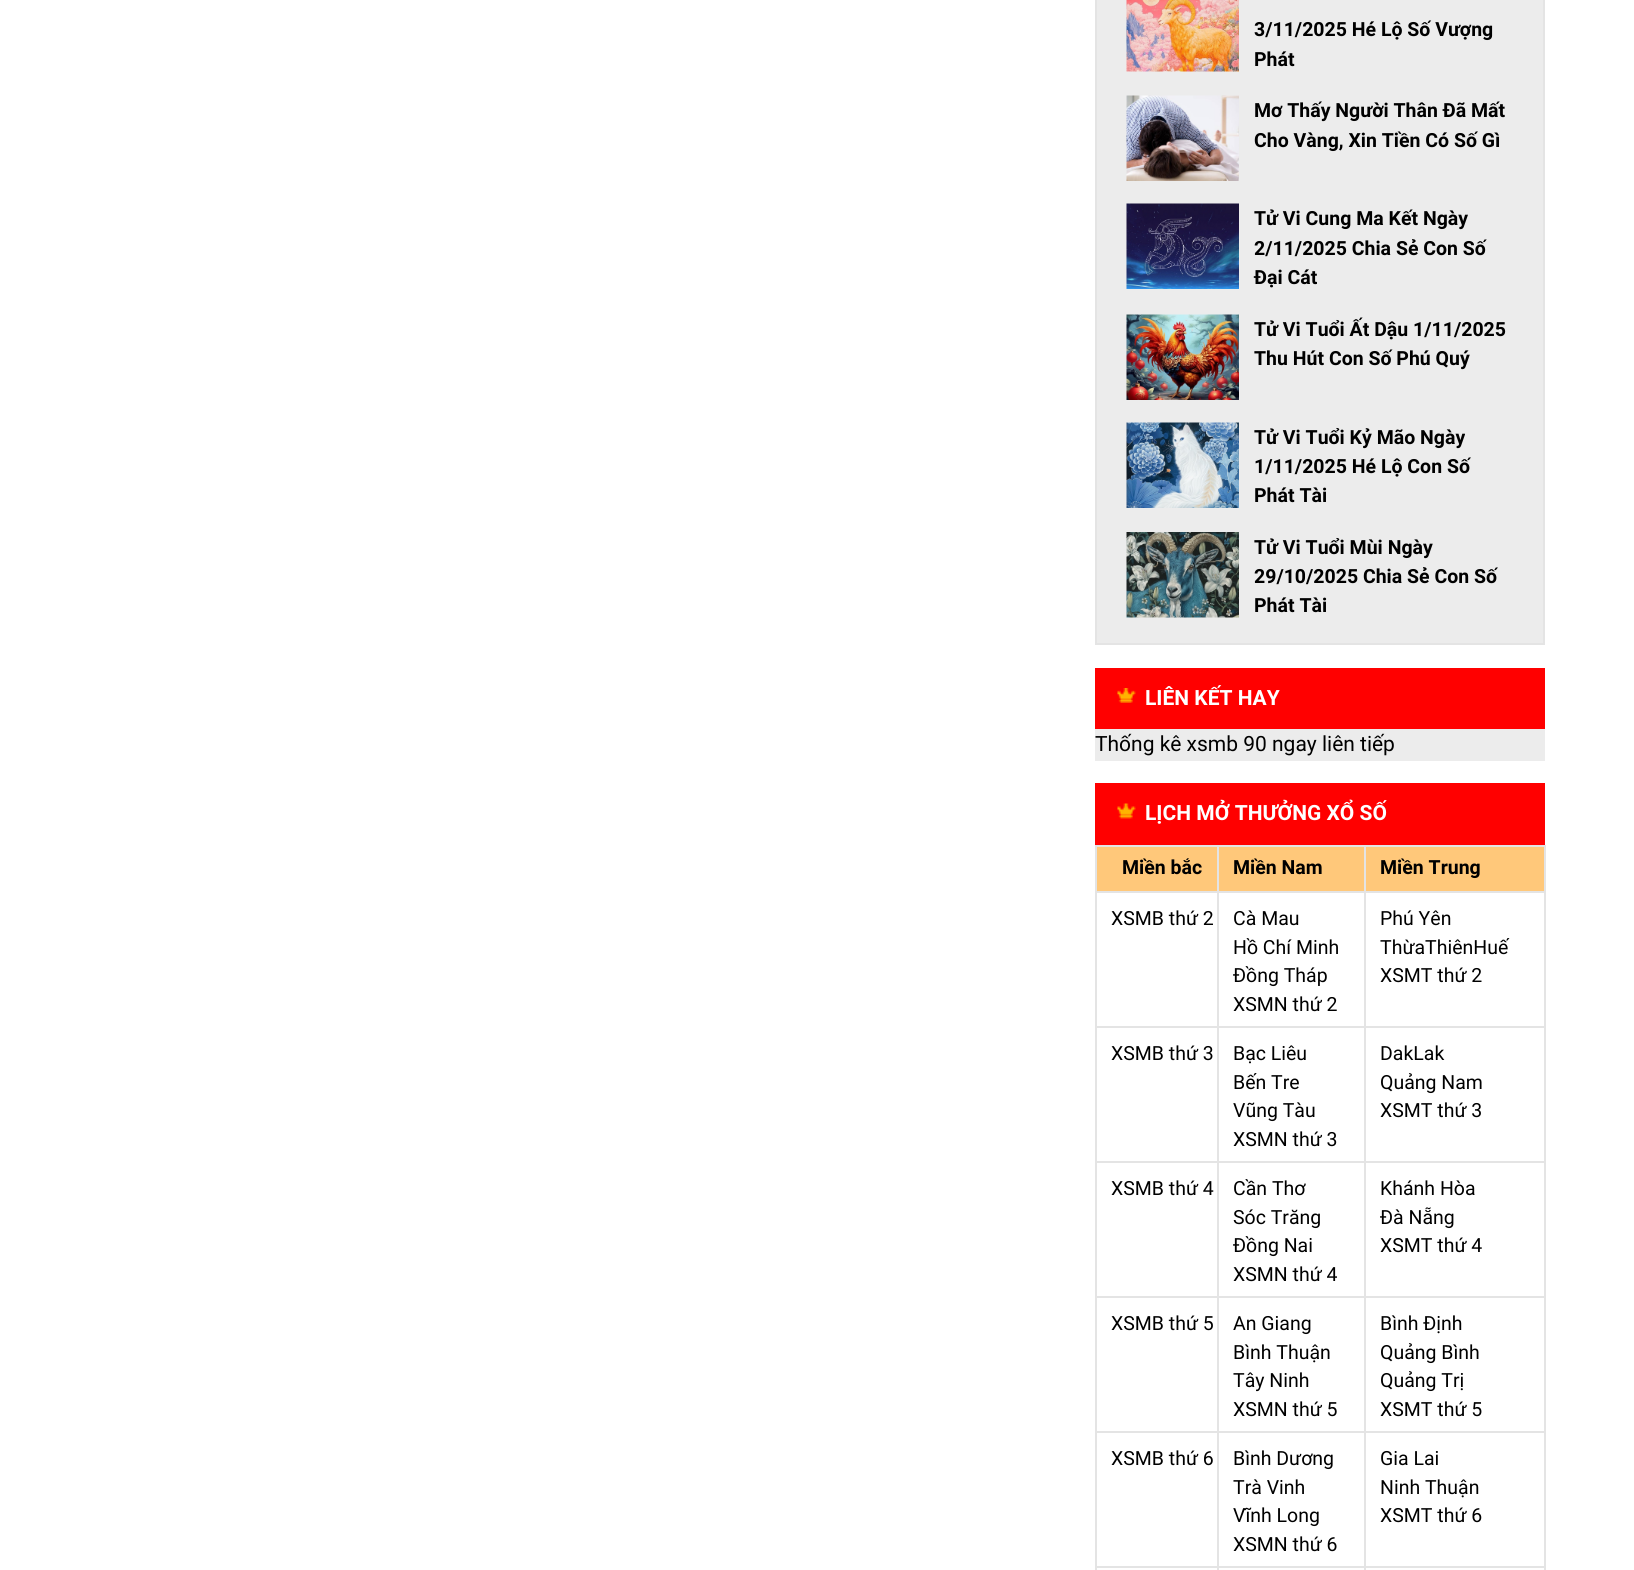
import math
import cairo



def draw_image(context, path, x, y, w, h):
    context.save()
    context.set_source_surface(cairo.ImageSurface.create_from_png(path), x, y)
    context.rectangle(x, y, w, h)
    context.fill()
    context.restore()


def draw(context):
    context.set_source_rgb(1, 1, 1)
    context.paint()
    context.set_source_rgb(236 / 255, 236 / 255, 236 / 255)
    context.rectangle(1096, -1, 448, 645)
    context.fill_preserve()
    context.set_source_rgb(228 / 255, 228 / 255, 228 / 255)
    context.stroke()
    draw_image(context, "images/1.png", 1126, 0, 113, 72)
    draw_image(context, "images/2.png", 1126, 95, 113, 86)
    draw_image(context, "images/3.png", 1126, 203, 113, 86)
    draw_image(context, "images/4.png", 1126, 314, 113, 86)
    draw_image(context, "images/5.png", 1126, 422, 113, 86)
    draw_image(context, "images/6.png", 1126, 532, 113, 86)
    context.set_source_rgb(236 / 255, 236 / 255, 236 / 255)
    context.rectangle(1095, 729, 450, 32)
    context.fill()
    context.set_source_rgb(1, 0, 0)
    context.rectangle(1095, 668, 450, 61)
    context.fill()
    draw_image(context, "images/7.png", 1117, 688, 19, 15)
    context.rectangle(1095, 783, 450, 62)
    context.fill()
    draw_image(context, "images/8.png", 1117, 803, 19, 16)
    context.set_source_rgb(1, 200 / 255, 122 / 255)
    context.rectangle(1097, 847, 447, 44)
    context.fill()
    context.set_source_rgb(228 / 255, 228 / 255, 228 / 255)
    context.rectangle(1364, 845, 181, 2)
    context.fill()
    context.rectangle(1364, 891, 181, 2)
    context.fill()
    context.rectangle(1364, 1026, 181, 2)
    context.fill()
    context.rectangle(1364, 1161, 181, 2)
    context.fill()
    context.rectangle(1364, 1296, 181, 2)
    context.fill()
    context.rectangle(1364, 1431, 181, 2)
    context.fill()
    context.rectangle(1364, 1566, 181, 2)
    context.fill()
    context.rectangle(1364, 1566, 2, 4)
    context.fill()
    context.rectangle(1217, 1566, 148, 2)
    context.fill()
    context.rectangle(1364, 1431, 2, 137)
    context.fill()
    context.rectangle(1217, 1431, 148, 2)
    context.fill()
    context.rectangle(1364, 1296, 2, 137)
    context.fill()
    context.rectangle(1217, 1296, 148, 2)
    context.fill()
    context.rectangle(1364, 1161, 2, 137)
    context.fill()
    context.rectangle(1217, 1161, 148, 2)
    context.fill()
    context.rectangle(1364, 1026, 2, 137)
    context.fill()
    context.rectangle(1217, 1026, 148, 2)
    context.fill()
    context.rectangle(1364, 891, 2, 137)
    context.fill()
    context.rectangle(1217, 891, 148, 2)
    context.fill()
    context.rectangle(1364, 845, 2, 48)
    context.fill()
    context.rectangle(1217, 845, 148, 2)
    context.fill()
    context.rectangle(1217, 1566, 2, 4)
    context.fill()
    context.rectangle(1095, 1566, 123, 2)
    context.fill()
    context.rectangle(1217, 1431, 2, 137)
    context.fill()
    context.rectangle(1095, 1431, 123, 2)
    context.fill()
    context.rectangle(1217, 1296, 2, 137)
    context.fill()
    context.rectangle(1095, 1296, 123, 2)
    context.fill()
    context.rectangle(1217, 1161, 2, 137)
    context.fill()
    context.rectangle(1095, 1161, 123, 2)
    context.fill()
    context.rectangle(1217, 1026, 2, 137)
    context.fill()
    context.rectangle(1095, 1026, 123, 2)
    context.fill()
    context.rectangle(1217, 891, 2, 137)
    context.fill()
    context.rectangle(1095, 891, 123, 2)
    context.fill()
    context.rectangle(1217, 845, 2, 48)
    context.fill()
    context.rectangle(1095, 845, 123, 2)
    context.fill()
    context.rectangle(1095, 1566, 2, 4)
    context.fill()
    context.rectangle(1095, 1431, 2, 137)
    context.fill()
    context.rectangle(1095, 1296, 2, 137)
    context.fill()
    context.rectangle(1095, 1161, 2, 137)
    context.fill()
    context.rectangle(1095, 1026, 2, 137)
    context.fill()
    context.rectangle(1095, 891, 2, 137)
    context.fill()
    context.rectangle(1095, 845, 2, 48)
    context.fill()
    context.rectangle(1544, 1566, 2, 4)
    context.fill()
    context.rectangle(1544, 1431, 2, 137)
    context.fill()
    context.rectangle(1544, 1296, 2, 137)
    context.fill()
    context.rectangle(1544, 1161, 2, 137)
    context.fill()
    context.rectangle(1544, 1026, 2, 137)
    context.fill()
    context.rectangle(1544, 891, 2, 137)
    context.fill()
    context.rectangle(1544, 845, 2, 48)
    context.fill()
    context.select_font_face("Roboto", cairo.FontSlant.NORMAL, cairo.FontWeight.BOLD)
    context.set_font_size(19.5)
    context.set_source_rgb(0, 0, 0)
    context.move_to(1254, 36)
    context.show_text("3/11/2025 Hé Lộ Số Vượng")
    context.move_to(1254, 66)
    context.show_text("Phát")
    context.move_to(1254, 117)
    context.show_text("Mơ Thấy Người Thân Đã Mất")
    context.move_to(1254, 147)
    context.show_text("Cho Vàng, Xin Tiền Có Số Gì")
    context.move_to(1254, 225)
    context.show_text("Tử Vi Cung Ma Kết Ngày")
    context.move_to(1254, 255)
    context.show_text("2/11/2025 Chia Sẻ Con Số")
    context.move_to(1254, 284)
    context.show_text("Đại Cát")
    context.move_to(1254, 336)
    context.show_text("Tử Vi Tuổi Ất Dậu 1/11/2025")
    context.move_to(1254, 365)
    context.show_text("Thu Hút Con Số Phú Quý")
    context.move_to(1254, 444)
    context.show_text("Tử Vi Tuổi Kỷ Mão Ngày")
    context.move_to(1254, 473)
    context.show_text("1/11/2025 Hé Lộ Con Số")
    context.move_to(1254, 502)
    context.show_text("Phát Tài")
    context.move_to(1254, 554)
    context.show_text("Tử Vi Tuổi Mùi Ngày")
    context.move_to(1254, 583)
    context.show_text("29/10/2025 Chia Sẻ Con Số")
    context.move_to(1254, 612)
    context.show_text("Phát Tài")
    context.set_font_size(21)
    context.set_source_rgb(1, 1, 1)
    context.move_to(1145, 705)
    context.show_text("LIÊN KẾT HAY")
    context.select_font_face("Roboto")
    context.set_source_rgb(0, 0, 0)
    context.move_to(1095, 751)
    context.show_text("Thống kê xsmb 90 ngay liên tiếp")
    context.select_font_face("Roboto", cairo.FontSlant.NORMAL, cairo.FontWeight.BOLD)
    context.set_source_rgb(1, 1, 1)
    context.move_to(1145, 820)
    context.show_text("LỊCH MỞ THƯỞNG XỔ SỐ")
    context.set_font_size(19.5)
    context.set_source_rgb(0, 0, 0)
    context.move_to(1122, 874)
    context.show_text("Miền bắc")
    context.move_to(1233, 874)
    context.show_text("Miền Nam")
    context.move_to(1380, 874)
    context.show_text("Miền Trung")
    context.select_font_face("Roboto")
    context.move_to(1111, 925)
    context.show_text("XSMB thứ 2")
    context.move_to(1233, 925)
    context.show_text("Cà Mau")
    context.move_to(1233, 954)
    context.show_text("Hồ Chí Minh")
    context.move_to(1233, 982)
    context.show_text("Đồng Tháp")
    context.move_to(1233, 1011)
    context.show_text("XSMN thứ 2")
    context.move_to(1380, 925)
    context.show_text("Phú Yên")
    context.move_to(1380, 954)
    context.show_text("ThừaThiênHuế")
    context.move_to(1380, 982)
    context.show_text("XSMT thứ 2")
    context.move_to(1111, 1060)
    context.show_text("XSMB thứ 3")
    context.move_to(1233, 1060)
    context.show_text("Bạc Liêu")
    context.move_to(1233, 1089)
    context.show_text("Bến Tre")
    context.move_to(1233, 1117)
    context.show_text("Vũng Tàu")
    context.move_to(1233, 1146)
    context.show_text("XSMN thứ 3")
    context.move_to(1380, 1060)
    context.show_text("DakLak")
    context.move_to(1380, 1089)
    context.show_text("Quảng Nam")
    context.move_to(1380, 1117)
    context.show_text("XSMT thứ 3")
    context.move_to(1111, 1195)
    context.show_text("XSMB thứ 4")
    context.move_to(1233, 1195)
    context.show_text("Cần Thơ")
    context.move_to(1233, 1224)
    context.show_text("Sóc Trăng")
    context.move_to(1233, 1252)
    context.show_text("Đồng Nai")
    context.move_to(1233, 1281)
    context.show_text("XSMN thứ 4")
    context.move_to(1380, 1195)
    context.show_text("Khánh Hòa")
    context.move_to(1380, 1224)
    context.show_text("Đà Nẵng")
    context.move_to(1380, 1252)
    context.show_text("XSMT thứ 4")
    context.move_to(1111, 1330)
    context.show_text("XSMB thứ 5")
    context.move_to(1233, 1330)
    context.show_text("An Giang")
    context.move_to(1233, 1359)
    context.show_text("Bình Thuận")
    context.move_to(1233, 1387)
    context.show_text("Tây Ninh")
    context.move_to(1233, 1416)
    context.show_text("XSMN thứ 5")
    context.move_to(1380, 1330)
    context.show_text("Bình Định")
    context.move_to(1380, 1359)
    context.show_text("Quảng Bình")
    context.move_to(1380, 1387)
    context.show_text("Quảng Trị")
    context.move_to(1380, 1416)
    context.show_text("XSMT thứ 5")
    context.move_to(1111, 1465)
    context.show_text("XSMB thứ 6")
    context.move_to(1233, 1465)
    context.show_text("Bình Dương")
    context.move_to(1233, 1494)
    context.show_text("Trà Vinh")
    context.move_to(1233, 1522)
    context.show_text("Vĩnh Long")
    context.move_to(1233, 1551)
    context.show_text("XSMN thứ 6")
    context.move_to(1380, 1465)
    context.show_text("Gia Lai")
    context.move_to(1380, 1494)
    context.show_text("Ninh Thuận")
    context.move_to(1380, 1522)
    context.show_text("XSMT thứ 6")


surface = cairo.ImageSurface(cairo.Format.RGB24, 1634, 1570)
context = cairo.Context(surface)
options = cairo.FontOptions()
options.set_hint_metrics(cairo.HintMetrics.OFF)
options.set_hint_style(cairo.HintStyle.NONE)
context.set_font_options(options)
context.set_miter_limit(4)
draw(context)
surface.write_to_png("out.png")
